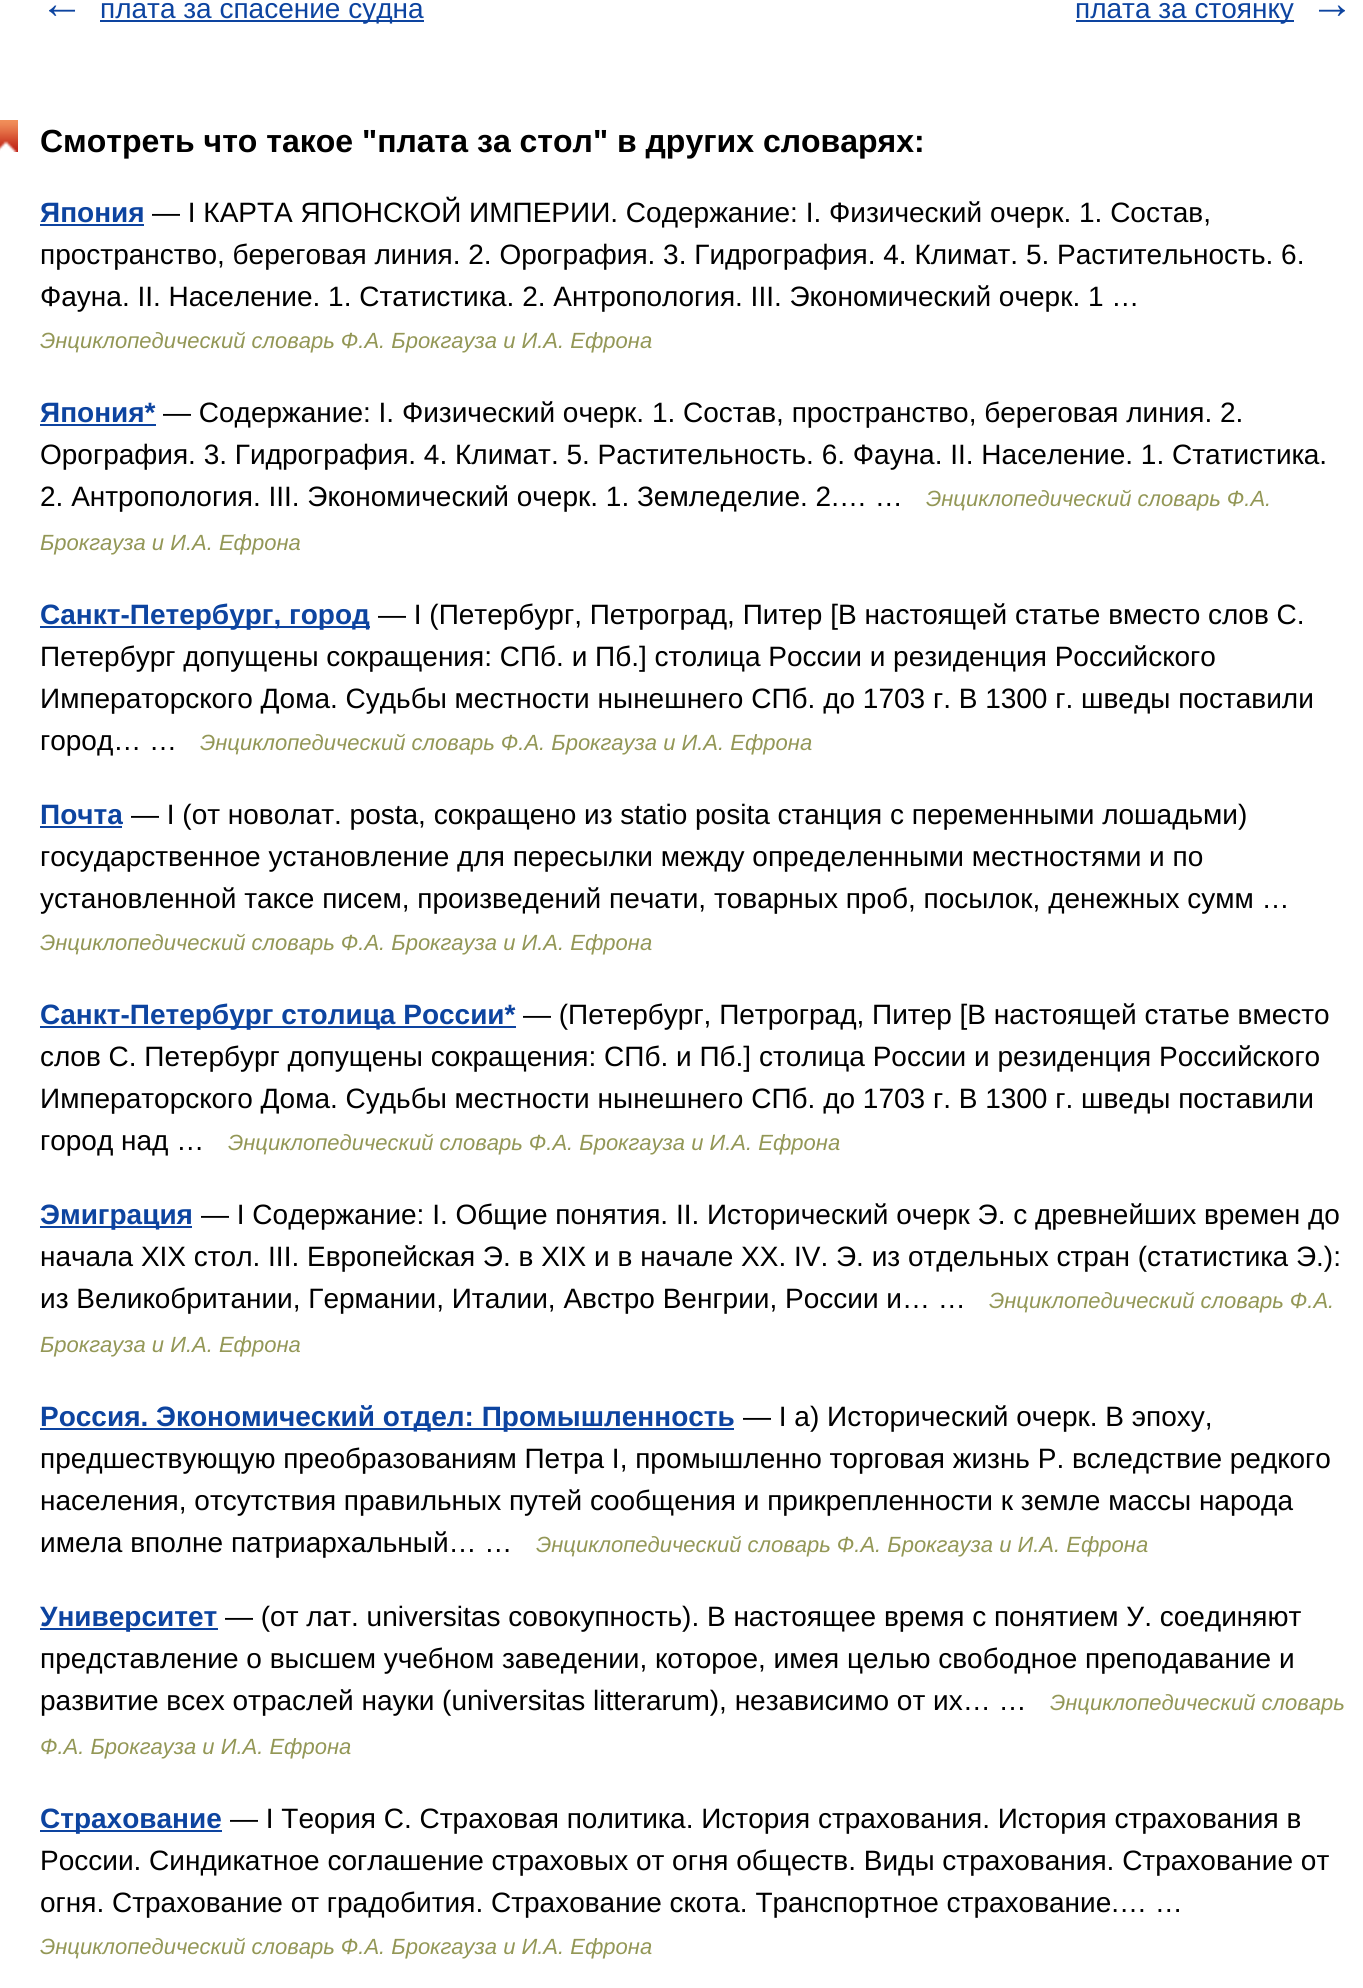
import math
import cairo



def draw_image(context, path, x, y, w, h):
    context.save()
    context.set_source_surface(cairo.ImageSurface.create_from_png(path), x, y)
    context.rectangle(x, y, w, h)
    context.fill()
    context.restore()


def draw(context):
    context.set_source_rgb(1, 1, 1)
    context.paint()
    context.set_source_rgb(13 / 255, 68 / 255, 160 / 255)
    context.rectangle(100, 20, 324, 2)
    context.fill()
    context.rectangle(1076, 20, 218, 2)
    context.fill()
    draw_image(context, "images/1.png", 0, 120, 18, 32)
    context.rectangle(40, 224, 104, 2)
    context.fill()
    context.rectangle(40, 424, 116, 2)
    context.fill()
    context.rectangle(40, 626, 330, 2)
    context.fill()
    context.rectangle(40, 826, 82, 2)
    context.fill()
    context.rectangle(40, 1026, 476, 2)
    context.fill()
    context.rectangle(40, 1226, 152, 2)
    context.fill()
    context.rectangle(40, 1428, 694, 2)
    context.fill()
    context.rectangle(40, 1628, 178, 2)
    context.fill()
    context.rectangle(40, 1830, 182, 2)
    context.fill()
    context.select_font_face("Liberation Sans", cairo.FontSlant.NORMAL, cairo.FontWeight.BOLD)
    context.set_font_size(44)
    context.move_to(40, 18)
    context.show_text("←")
    context.select_font_face("Liberation Sans")
    context.set_font_size(28)
    context.move_to(100, 18)
    context.show_text("плата за спасение судна")
    context.move_to(1075, 18)
    context.show_text("плата за стоянку")
    context.select_font_face("Liberation Sans", cairo.FontSlant.NORMAL, cairo.FontWeight.BOLD)
    context.set_font_size(44)
    context.move_to(1310, 18)
    context.show_text("→")
    context.set_font_size(32)
    context.set_source_rgb(0, 0, 0)
    context.move_to(40, 152)
    context.show_text("Смотреть что такое \"плата за стол\" в других словарях:")
    context.set_font_size(28)
    context.set_source_rgb(13 / 255, 68 / 255, 160 / 255)
    context.move_to(40, 222)
    context.show_text("Япония")
    context.select_font_face("Liberation Sans")
    context.set_source_rgb(0, 0, 0)
    context.move_to(152, 222)
    context.show_text("— I КАРТА ЯПОНСКОЙ ИМПЕРИИ. Содержание: I. Физический очерк. 1. Состав,")
    context.move_to(40, 264)
    context.show_text("пространство, береговая линия. 2. Орография. 3. Гидрография. 4. Климат. 5. Растительность. 6.")
    context.move_to(40, 306)
    context.show_text("Фауна. II. Население. 1. Статистика. 2. Антропология. III. Экономический очерк. 1 …")
    context.select_font_face("Liberation Sans", cairo.FontSlant.ITALIC)
    context.set_font_size(22)
    context.set_source_rgb(147 / 255, 151 / 255, 86 / 255)
    context.move_to(40, 348)
    context.show_text("Энциклопедический словарь Ф.А. Брокгауза и И.А. Ефрона")
    context.select_font_face("Liberation Sans", cairo.FontSlant.NORMAL, cairo.FontWeight.BOLD)
    context.set_font_size(28)
    context.set_source_rgb(13 / 255, 68 / 255, 160 / 255)
    context.move_to(40, 422)
    context.show_text("Япония*")
    context.select_font_face("Liberation Sans")
    context.set_source_rgb(0, 0, 0)
    context.move_to(163, 422)
    context.show_text("— Содержание: I. Физический очерк. 1. Состав, пространство, береговая линия. 2.")
    context.move_to(40, 464)
    context.show_text("Орография. 3. Гидрография. 4. Климат. 5. Растительность. 6. Фауна. II. Население. 1. Статистика.")
    context.move_to(40, 506)
    context.show_text("2. Антропология. III. Экономический очерк. 1. Земледелие. 2.… …")
    context.select_font_face("Liberation Sans", cairo.FontSlant.ITALIC)
    context.set_font_size(22)
    context.set_source_rgb(147 / 255, 151 / 255, 86 / 255)
    context.move_to(926, 506)
    context.show_text("Энциклопедический словарь Ф.А.")
    context.move_to(40, 550)
    context.show_text("Брокгауза и И.А. Ефрона")
    context.select_font_face("Liberation Sans", cairo.FontSlant.NORMAL, cairo.FontWeight.BOLD)
    context.set_font_size(28)
    context.set_source_rgb(13 / 255, 68 / 255, 160 / 255)
    context.move_to(40, 624)
    context.show_text("Санкт-Петербург, город")
    context.select_font_face("Liberation Sans")
    context.set_source_rgb(0, 0, 0)
    context.move_to(378, 624)
    context.show_text("— I (Петербург, Петроград, Питер [В настоящей статье вместо слов С.")
    context.move_to(40, 666)
    context.show_text("Петербург допущены сокращения: СПб. и Пб.] столица России и резиденция Российского")
    context.move_to(40, 708)
    context.show_text("Императорского Дома. Судьбы местности нынешнего СПб. до 1703 г. В 1300 г. шведы поставили")
    context.move_to(40, 750)
    context.show_text("город… …")
    context.select_font_face("Liberation Sans", cairo.FontSlant.ITALIC)
    context.set_font_size(22)
    context.set_source_rgb(147 / 255, 151 / 255, 86 / 255)
    context.move_to(200, 750)
    context.show_text("Энциклопедический словарь Ф.А. Брокгауза и И.А. Ефрона")
    context.select_font_face("Liberation Sans", cairo.FontSlant.NORMAL, cairo.FontWeight.BOLD)
    context.set_font_size(28)
    context.set_source_rgb(13 / 255, 68 / 255, 160 / 255)
    context.move_to(40, 824)
    context.show_text("Почта")
    context.select_font_face("Liberation Sans")
    context.set_source_rgb(0, 0, 0)
    context.move_to(131, 824)
    context.show_text("— I (от новолат. posta, сокращено из statio posita станция с переменными лошадьми)")
    context.move_to(40, 866)
    context.show_text("государственное установление для пересылки между определенными местностями и по")
    context.move_to(40, 908)
    context.show_text("установленной таксе писем, произведений печати, товарных проб, посылок, денежных сумм …")
    context.select_font_face("Liberation Sans", cairo.FontSlant.ITALIC)
    context.set_font_size(22)
    context.set_source_rgb(147 / 255, 151 / 255, 86 / 255)
    context.move_to(40, 950)
    context.show_text("Энциклопедический словарь Ф.А. Брокгауза и И.А. Ефрона")
    context.select_font_face("Liberation Sans", cairo.FontSlant.NORMAL, cairo.FontWeight.BOLD)
    context.set_font_size(28)
    context.set_source_rgb(13 / 255, 68 / 255, 160 / 255)
    context.move_to(40, 1024)
    context.show_text("Санкт-Петербург столица России*")
    context.select_font_face("Liberation Sans")
    context.set_source_rgb(0, 0, 0)
    context.move_to(523, 1024)
    context.show_text("— (Петербург, Петроград, Питер [В настоящей статье вместо")
    context.move_to(40, 1066)
    context.show_text("слов С. Петербург допущены сокращения: СПб. и Пб.] столица России и резиденция Российского")
    context.move_to(40, 1108)
    context.show_text("Императорского Дома. Судьбы местности нынешнего СПб. до 1703 г. В 1300 г. шведы поставили")
    context.move_to(40, 1150)
    context.show_text("город над …")
    context.select_font_face("Liberation Sans", cairo.FontSlant.ITALIC)
    context.set_font_size(22)
    context.set_source_rgb(147 / 255, 151 / 255, 86 / 255)
    context.move_to(228, 1150)
    context.show_text("Энциклопедический словарь Ф.А. Брокгауза и И.А. Ефрона")
    context.select_font_face("Liberation Sans", cairo.FontSlant.NORMAL, cairo.FontWeight.BOLD)
    context.set_font_size(28)
    context.set_source_rgb(13 / 255, 68 / 255, 160 / 255)
    context.move_to(40, 1224)
    context.show_text("Эмиграция")
    context.select_font_face("Liberation Sans")
    context.set_source_rgb(0, 0, 0)
    context.move_to(201, 1224)
    context.show_text("— I Содержание: I. Общие понятия. II. Исторический очерк Э. с древнейших времен до")
    context.move_to(40, 1266)
    context.show_text("начала XIX стол. III. Европейская Э. в XIX и в начале XX. IV. Э. из отдельных стран (статистика Э.):")
    context.move_to(40, 1308)
    context.show_text("из Великобритании, Германии, Италии, Австро Венгрии, России и… …")
    context.select_font_face("Liberation Sans", cairo.FontSlant.ITALIC)
    context.set_font_size(22)
    context.set_source_rgb(147 / 255, 151 / 255, 86 / 255)
    context.move_to(989, 1308)
    context.show_text("Энциклопедический словарь Ф.А.")
    context.move_to(40, 1352)
    context.show_text("Брокгауза и И.А. Ефрона")
    context.select_font_face("Liberation Sans", cairo.FontSlant.NORMAL, cairo.FontWeight.BOLD)
    context.set_font_size(28)
    context.set_source_rgb(13 / 255, 68 / 255, 160 / 255)
    context.move_to(40, 1426)
    context.show_text("Россия. Экономический отдел: Промышленность")
    context.select_font_face("Liberation Sans")
    context.set_source_rgb(0, 0, 0)
    context.move_to(743, 1426)
    context.show_text("— I а) Исторический очерк. В эпоху,")
    context.move_to(40, 1468)
    context.show_text("предшествующую преобразованиям Петра I, промышленно торговая жизнь Р. вследствие редкого")
    context.move_to(40, 1510)
    context.show_text("населения, отсутствия правильных путей сообщения и прикрепленности к земле массы народа")
    context.move_to(40, 1552)
    context.show_text("имела вполне патриархальный… …")
    context.select_font_face("Liberation Sans", cairo.FontSlant.ITALIC)
    context.set_font_size(22)
    context.set_source_rgb(147 / 255, 151 / 255, 86 / 255)
    context.move_to(536, 1552)
    context.show_text("Энциклопедический словарь Ф.А. Брокгауза и И.А. Ефрона")
    context.select_font_face("Liberation Sans", cairo.FontSlant.NORMAL, cairo.FontWeight.BOLD)
    context.set_font_size(28)
    context.set_source_rgb(13 / 255, 68 / 255, 160 / 255)
    context.move_to(40, 1626)
    context.show_text("Университет")
    context.select_font_face("Liberation Sans")
    context.set_source_rgb(0, 0, 0)
    context.move_to(225, 1626)
    context.show_text("— (от лат. universitas совокупность). В настоящее время с понятием У. соединяют")
    context.move_to(40, 1668)
    context.show_text("представление о высшем учебном заведении, которое, имея целью свободное преподавание и")
    context.move_to(40, 1710)
    context.show_text("развитие всех отраслей науки (universitas litterarum), независимо от их… …")
    context.select_font_face("Liberation Sans", cairo.FontSlant.ITALIC)
    context.set_font_size(22)
    context.set_source_rgb(147 / 255, 151 / 255, 86 / 255)
    context.move_to(1050, 1710)
    context.show_text("Энциклопедический словарь")
    context.move_to(40, 1754)
    context.show_text("Ф.А. Брокгауза и И.А. Ефрона")
    context.select_font_face("Liberation Sans", cairo.FontSlant.NORMAL, cairo.FontWeight.BOLD)
    context.set_font_size(28)
    context.set_source_rgb(13 / 255, 68 / 255, 160 / 255)
    context.move_to(40, 1828)
    context.show_text("Страхование")
    context.select_font_face("Liberation Sans")
    context.set_source_rgb(0, 0, 0)
    context.move_to(230, 1828)
    context.show_text("— I Теория С. Страховая политика. История страхования. История страхования в")
    context.move_to(40, 1870)
    context.show_text("России. Синдикатное соглашение страховых от огня обществ. Виды страхования. Страхование от")
    context.move_to(40, 1912)
    context.show_text("огня. Страхование от градобития. Страхование скота. Транспортное страхование.… …")
    context.select_font_face("Liberation Sans", cairo.FontSlant.ITALIC)
    context.set_font_size(22)
    context.set_source_rgb(147 / 255, 151 / 255, 86 / 255)
    context.move_to(40, 1954)
    context.show_text("Энциклопедический словарь Ф.А. Брокгауза и И.А. Ефрона")


surface = cairo.ImageSurface(cairo.Format.RGB24, 1363, 1988)
context = cairo.Context(surface)
options = cairo.FontOptions()
options.set_hint_metrics(cairo.HintMetrics.OFF)
options.set_hint_style(cairo.HintStyle.NONE)
context.set_font_options(options)
context.set_miter_limit(4)
draw(context)
surface.write_to_png("out.png")
